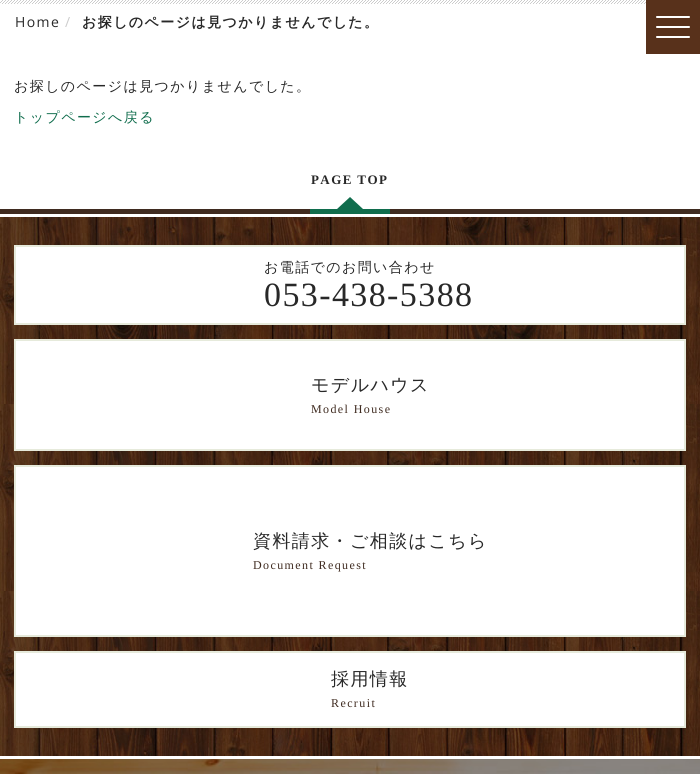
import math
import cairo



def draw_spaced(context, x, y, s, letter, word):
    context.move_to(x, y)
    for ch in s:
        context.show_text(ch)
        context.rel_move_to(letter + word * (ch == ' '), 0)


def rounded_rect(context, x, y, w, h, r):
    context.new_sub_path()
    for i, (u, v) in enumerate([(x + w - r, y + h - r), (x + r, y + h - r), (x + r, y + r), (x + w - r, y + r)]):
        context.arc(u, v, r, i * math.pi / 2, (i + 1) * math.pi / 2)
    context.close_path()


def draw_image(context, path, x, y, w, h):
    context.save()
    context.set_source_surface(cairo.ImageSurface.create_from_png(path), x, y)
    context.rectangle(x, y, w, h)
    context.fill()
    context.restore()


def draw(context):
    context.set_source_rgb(1, 1, 1)
    context.paint()
    draw_image(context, "images/1.png", 0, 0, 646, 4)
    context.set_source_rgb(88 / 255, 49 / 255, 27 / 255)
    context.rectangle(646, 0, 54, 54)
    context.fill()
    context.set_source_rgb(1, 1, 1)
    rounded_rect(context, 656, 26, 34, 2, 1)
    context.fill()
    rounded_rect(context, 656, 16, 34, 2, 1)
    context.fill()
    rounded_rect(context, 656, 36, 34, 2, 1)
    context.fill()
    context.set_source_rgb(63 / 255, 43 / 255, 32 / 255)
    context.rectangle(0, 209, 700, 5)
    context.fill()
    context.set_source_rgb(16 / 255, 109 / 255, 77 / 255)
    context.new_path()
    context.move_to(363, 209)
    context.line_to(337, 209)
    context.line_to(350, 197)
    context.close_path()
    context.fill()
    context.rectangle(310, 209, 80, 5)
    context.fill()
    draw_image(context, "images/2.png", 0, 217, 700, 539)
    context.set_source_rgb(1, 1, 1)
    context.rectangle(15, 246, 670, 78)
    context.fill_preserve()
    context.set_source_rgb(230 / 255, 234 / 255, 219 / 255)
    context.stroke()
    context.set_source_rgb(1, 1, 1)
    context.rectangle(15, 340, 670, 110)
    context.fill_preserve()
    context.set_source_rgb(230 / 255, 234 / 255, 219 / 255)
    context.stroke()
    context.set_source_rgb(1, 1, 1)
    context.rectangle(15, 466, 670, 170)
    context.fill_preserve()
    context.set_source_rgb(230 / 255, 234 / 255, 219 / 255)
    context.stroke()
    context.set_source_rgb(1, 1, 1)
    context.rectangle(15, 652, 670, 75)
    context.fill_preserve()
    context.set_source_rgb(230 / 255, 234 / 255, 219 / 255)
    context.stroke()
    draw_image(context, "images/3.png", 0, 759, 700, 15)
    context.select_font_face("Open Sans")
    context.set_font_size(14)
    context.set_source_rgb(40 / 255, 40 / 255, 40 / 255)
    draw_spaced(context, 15, 27, "Home", 1.4, 0)
    context.set_source_rgb(204 / 255, 204 / 255, 204 / 255)
    draw_spaced(context, 65, 27, "/", 1.4, 0)
    context.select_font_face("WenQuanYi Zen Hei", cairo.FontSlant.NORMAL, cairo.FontWeight.BOLD)
    context.set_source_rgb(40 / 255, 40 / 255, 40 / 255)
    draw_spaced(context, 82, 27, "お探しのページは見つかりませんでした。", 1.4, 0)
    context.select_font_face("WenQuanYi Zen Hei Medium")
    draw_spaced(context, 14, 91, "お探しのページは見つかりませんでした。", 1.4, 0)
    context.set_source_rgb(16 / 255, 109 / 255, 77 / 255)
    draw_spaced(context, 14, 122, "トップページへ戻る", 1.4, 0)
    context.select_font_face("Liberation Serif", cairo.FontSlant.NORMAL, cairo.FontWeight.BOLD)
    context.set_font_size(13)
    context.set_source_rgb(40 / 255, 40 / 255, 40 / 255)
    draw_spaced(context, 311, 184, "PAGE TOP", 1.4, 0)
    context.select_font_face("WenQuanYi Zen Hei Medium")
    context.set_font_size(14)
    draw_spaced(context, 264, 272, "お電話でのお問い合わせ", 1.4, 0)
    context.select_font_face("Liberation Serif")
    context.set_font_size(34)
    draw_spaced(context, 264, 306, "053-438-5388", 1.4, 0)
    context.select_font_face("WenQuanYi Zen Hei Medium")
    context.set_font_size(18)
    draw_spaced(context, 311, 391, "モデルハウス", 1.4, 0)
    context.select_font_face("Liberation Serif")
    context.set_font_size(12)
    context.set_source_rgb(63 / 255, 43 / 255, 32 / 255)
    draw_spaced(context, 311, 413, "Model House", 1.4, 0)
    context.select_font_face("WenQuanYi Zen Hei Medium")
    context.set_font_size(18)
    context.set_source_rgb(40 / 255, 40 / 255, 40 / 255)
    draw_spaced(context, 253, 547, "資料請求・ご相談はこちら", 1.4, 0)
    context.select_font_face("Liberation Serif")
    context.set_font_size(12)
    context.set_source_rgb(63 / 255, 43 / 255, 32 / 255)
    draw_spaced(context, 253, 569, "Document Request", 1.4, 0)
    context.select_font_face("WenQuanYi Zen Hei Medium")
    context.set_font_size(18)
    context.set_source_rgb(40 / 255, 40 / 255, 40 / 255)
    draw_spaced(context, 331, 685, "採用情報", 1.4, 0)
    context.select_font_face("Liberation Serif")
    context.set_font_size(12)
    context.set_source_rgb(63 / 255, 43 / 255, 32 / 255)
    draw_spaced(context, 331, 707, "Recruit", 1.4, 0)


surface = cairo.ImageSurface(cairo.Format.RGB24, 700, 774)
context = cairo.Context(surface)
options = cairo.FontOptions()
options.set_hint_metrics(cairo.HintMetrics.OFF)
options.set_hint_style(cairo.HintStyle.NONE)
context.set_font_options(options)
context.set_miter_limit(4)
draw(context)
surface.write_to_png("out.png")
